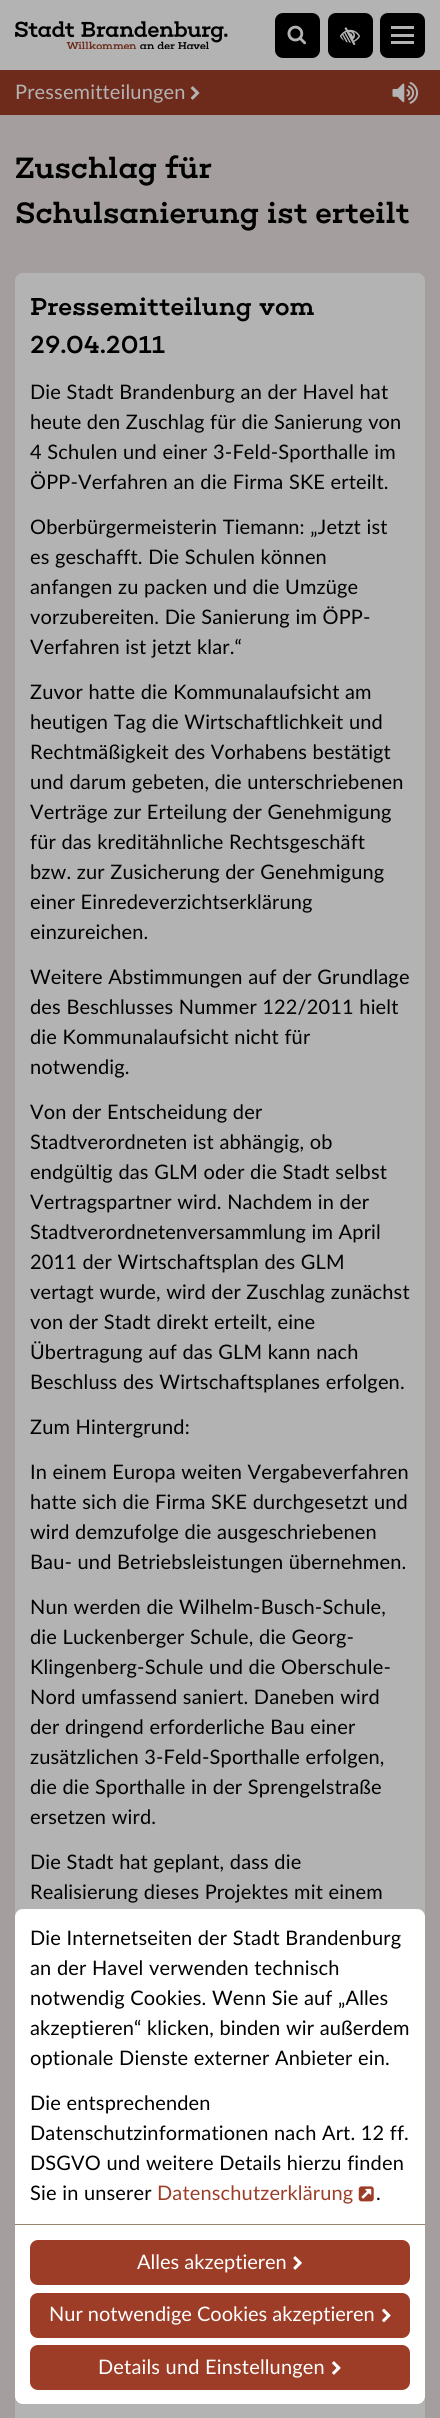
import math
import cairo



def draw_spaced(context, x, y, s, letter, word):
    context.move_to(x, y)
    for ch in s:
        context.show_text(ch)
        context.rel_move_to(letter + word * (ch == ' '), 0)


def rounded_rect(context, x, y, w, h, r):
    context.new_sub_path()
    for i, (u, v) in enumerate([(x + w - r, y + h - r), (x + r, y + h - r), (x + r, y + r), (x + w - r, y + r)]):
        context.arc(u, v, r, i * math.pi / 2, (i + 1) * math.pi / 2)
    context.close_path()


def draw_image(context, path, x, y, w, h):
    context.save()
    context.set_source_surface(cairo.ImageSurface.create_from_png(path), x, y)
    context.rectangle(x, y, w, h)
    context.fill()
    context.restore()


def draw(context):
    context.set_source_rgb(164 / 255, 159 / 255, 158 / 255)
    context.paint()
    context.set_source_rgb(179 / 255, 179 / 255, 179 / 255)
    context.rectangle(0, 0, 440, 70)
    context.fill()
    draw_image(context, "images/1.png", 15, 21, 213, 28)
    context.set_source_rgb(0, 0, 0)
    rounded_rect(context, 275, 13, 45, 45, 8)
    context.fill()
    draw_image(context, "images/2.png", 287, 25, 20, 20)
    rounded_rect(context, 328, 13, 45, 45, 8)
    context.fill()
    draw_image(context, "images/3.png", 340, 27, 20, 19)
    rounded_rect(context, 380, 13, 45, 45, 8)
    context.fill()
    context.set_source_rgb(179 / 255, 179 / 255, 179 / 255)
    context.rectangle(391, 26, 23, 3)
    context.fill()
    context.rectangle(391, 34, 23, 3)
    context.fill()
    context.rectangle(391, 41, 23, 3)
    context.fill()
    context.set_source_rgb(110 / 255, 43 / 255, 27 / 255)
    context.rectangle(0, 70, 440, 45)
    context.fill()
    draw_image(context, "images/4.png", 190, 86, 10, 14)
    draw_image(context, "images/5.png", 392, 82, 26, 22)
    context.set_source_rgb(179 / 255, 179 / 255, 179 / 255)
    rounded_rect(context, 15, 273, 410, 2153, 8)
    context.fill()
    context.set_source_rgb(1, 1, 1)
    context.new_path()
    context.move_to(23, 1909)
    context.line_to(417, 1909)
    context.curve_to(421.5, 1909, 425, 1912.5, 425, 1917)
    context.line_to(425, 2224)
    context.line_to(15, 2224)
    context.line_to(15, 1917)
    context.curve_to(15, 1912.5, 18.5, 1909, 23, 1909)
    context.close_path()
    context.fill()
    draw_image(context, "images/6.png", 358, 2186, 16, 16)
    context.new_path()
    context.move_to(15, 2224)
    context.line_to(425, 2224)
    context.line_to(425, 2396)
    context.curve_to(425, 2400.5, 421.5, 2404, 417, 2404)
    context.line_to(23, 2404)
    context.curve_to(18.5, 2404, 15, 2400.5, 15, 2396)
    context.close_path()
    context.fill()
    context.set_source_rgb(150 / 255, 134 / 255, 109 / 255)
    context.rectangle(15, 2224, 410, 1)
    context.fill()
    context.set_source_rgb(157 / 255, 61 / 255, 39 / 255)
    rounded_rect(context, 30, 2240, 380, 45, 8)
    context.fill()
    draw_image(context, "images/7.png", 293, 2256, 9, 14)
    rounded_rect(context, 30, 2293, 380, 45, 8)
    context.fill()
    draw_image(context, "images/8.png", 382, 2308, 9, 15)
    rounded_rect(context, 30, 2345, 380, 45, 8)
    context.fill()
    draw_image(context, "images/9.png", 332, 2361, 9, 14)
    context.select_font_face("Lato")
    context.set_font_size(20)
    context.set_source_rgb(179 / 255, 179 / 255, 179 / 255)
    draw_spaced(context, 15, 99, "Pressemitteilungen", 0.15, 0)
    context.select_font_face("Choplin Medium")
    context.set_font_size(30)
    context.set_source_rgb(0, 0, 0)
    context.move_to(15, 178)
    context.show_text("Zuschlag für")
    context.move_to(15, 223)
    context.show_text("Schulsanierung ist erteilt")
    context.set_font_size(25)
    draw_spaced(context, 30, 315, "Pressemitteilung vom", 0.15, 0.25)
    draw_spaced(context, 30, 353, "29.04.2011", 0.15, 0)
    context.select_font_face("Lato")
    context.set_font_size(20)
    draw_spaced(context, 30, 399, "Die Stadt Brandenburg an der Havel hat", 0.15, 0.25)
    draw_spaced(context, 30, 429, "heute den Zuschlag für die Sanierung von", 0.15, 0.25)
    draw_spaced(context, 30, 459, "4 Schulen und einer 3-Feld-Sporthalle im", 0.15, 0.25)
    draw_spaced(context, 30, 489, "ÖPP-Verfahren an die Firma SKE erteilt.", 0.15, 0.25)
    draw_spaced(context, 30, 534, "Oberbürgermeisterin Tiemann: „Jetzt ist", 0.15, 0.25)
    draw_spaced(context, 30, 564, "es geschafft. Die Schulen können", 0.15, 0.25)
    draw_spaced(context, 30, 594, "anfangen zu packen und die Umzüge", 0.15, 0.25)
    draw_spaced(context, 30, 624, "vorzubereiten. Die Sanierung im ÖPP-", 0.15, 0.25)
    draw_spaced(context, 30, 654, "Verfahren ist jetzt klar.“", 0.15, 0.25)
    draw_spaced(context, 30, 699, "Zuvor hatte die Kommunalaufsicht am", 0.15, 0.25)
    draw_spaced(context, 30, 729, "heutigen Tag die Wirtschaftlichkeit und", 0.15, 0.25)
    draw_spaced(context, 30, 759, "Rechtmäßigkeit des Vorhabens bestätigt", 0.15, 0.25)
    draw_spaced(context, 30, 789, "und darum gebeten, die unterschriebenen", 0.15, 0.25)
    draw_spaced(context, 30, 819, "Verträge zur Erteilung der Genehmigung", 0.15, 0.25)
    draw_spaced(context, 30, 849, "für das kreditähnliche Rechtsgeschäft", 0.15, 0.25)
    draw_spaced(context, 30, 879, "bzw. zur Zusicherung der Genehmigung", 0.15, 0.25)
    draw_spaced(context, 30, 909, "einer Einredeverzichtserklärung", 0.15, 0.25)
    draw_spaced(context, 30, 939, "einzureichen.", 0.15, 0)
    draw_spaced(context, 30, 984, "Weitere Abstimmungen auf der Grundlage", 0.15, 0.25)
    draw_spaced(context, 30, 1014, "des Beschlusses Nummer 122/2011 hielt", 0.15, 0.25)
    draw_spaced(context, 30, 1044, "die Kommunalaufsicht nicht für", 0.15, 0.25)
    draw_spaced(context, 30, 1074, "notwendig.", 0.15, 0)
    draw_spaced(context, 30, 1119, "Von der Entscheidung der", 0.15, 0.25)
    draw_spaced(context, 30, 1149, "Stadtverordneten ist abhängig, ob", 0.15, 0.25)
    draw_spaced(context, 30, 1179, "endgültig das GLM oder die Stadt selbst", 0.15, 0.25)
    draw_spaced(context, 30, 1209, "Vertragspartner wird. Nachdem in der", 0.15, 0.25)
    draw_spaced(context, 30, 1239, "Stadtverordnetenversammlung im April", 0.15, 0.25)
    draw_spaced(context, 30, 1269, "2011 der Wirtschaftsplan des GLM", 0.15, 0.25)
    draw_spaced(context, 30, 1299, "vertagt wurde, wird der Zuschlag zunächst", 0.15, 0.25)
    draw_spaced(context, 30, 1329, "von der Stadt direkt erteilt, eine", 0.15, 0.25)
    draw_spaced(context, 30, 1359, "Übertragung auf das GLM kann nach", 0.15, 0.25)
    draw_spaced(context, 30, 1389, "Beschluss des Wirtschaftsplanes erfolgen.", 0.15, 0.25)
    draw_spaced(context, 30, 1434, "Zum Hintergrund:", 0.15, 0.25)
    draw_spaced(context, 30, 1479, "In einem Europa weiten Vergabeverfahren", 0.15, 0.25)
    draw_spaced(context, 30, 1509, "hatte sich die Firma SKE durchgesetzt und", 0.15, 0.25)
    draw_spaced(context, 30, 1539, "wird demzufolge die ausgeschriebenen", 0.15, 0.25)
    draw_spaced(context, 30, 1569, "Bau- und Betriebsleistungen übernehmen.", 0.15, 0.25)
    draw_spaced(context, 30, 1614, "Nun werden die Wilhelm-Busch-Schule,", 0.15, 0.25)
    draw_spaced(context, 30, 1644, "die Luckenberger Schule, die Georg-", 0.15, 0.25)
    draw_spaced(context, 30, 1674, "Klingenberg-Schule und die Oberschule-", 0.15, 0.25)
    draw_spaced(context, 30, 1704, "Nord umfassend saniert. Daneben wird", 0.15, 0.25)
    draw_spaced(context, 30, 1734, "der dringend erforderliche Bau einer", 0.15, 0.25)
    draw_spaced(context, 30, 1764, "zusätzlichen 3-Feld-Sporthalle erfolgen,", 0.15, 0.25)
    draw_spaced(context, 30, 1794, "die die Sporthalle in der Sprengelstraße", 0.15, 0.25)
    draw_spaced(context, 30, 1824, "ersetzen wird.", 0.15, 0.25)
    draw_spaced(context, 30, 1869, "Die Stadt hat geplant, dass die", 0.15, 0.25)
    draw_spaced(context, 30, 1899, "Realisierung dieses Projektes mit einem", 0.15, 0.25)
    draw_spaced(context, 30, 1945, "Die Internetseiten der Stadt Brandenburg", 0.15, 0.25)
    draw_spaced(context, 30, 1975, "an der Havel verwenden technisch", 0.15, 0.25)
    draw_spaced(context, 30, 2005, "notwendig Cookies. Wenn Sie auf „Alles", 0.15, 0.25)
    draw_spaced(context, 30, 2035, "akzeptieren“ klicken, binden wir außerdem", 0.15, 0.25)
    draw_spaced(context, 30, 2065, "optionale Dienste externer Anbieter ein.", 0.15, 0.25)
    draw_spaced(context, 30, 2110, "Die entsprechenden", 0.15, 0.25)
    draw_spaced(context, 30, 2140, "Datenschutzinformationen nach Art. 12 ff.", 0.15, 0.25)
    draw_spaced(context, 30, 2170, "DSGVO und weitere Details hierzu finden", 0.15, 0.25)
    draw_spaced(context, 30, 2200, "Sie in unserer", 0.15, 0.25)
    context.set_source_rgb(157 / 255, 61 / 255, 39 / 255)
    draw_spaced(context, 157, 2200, "Datenschutzerklärung", 0.15, 0)
    context.set_source_rgb(0, 0, 0)
    draw_spaced(context, 376, 2200, ".", 0.15, 0)
    context.set_source_rgb(1, 1, 1)
    context.move_to(137, 2269)
    context.show_text("Alles akzeptieren")
    context.move_to(49, 2321)
    context.show_text("Nur notwendige Cookies akzeptieren")
    draw_spaced(context, 98, 2374, "Details und Einstellungen", 0.15, 0.25)


surface = cairo.ImageSurface(cairo.Format.RGB24, 440, 2418)
context = cairo.Context(surface)
options = cairo.FontOptions()
options.set_hint_metrics(cairo.HintMetrics.OFF)
options.set_hint_style(cairo.HintStyle.NONE)
context.set_font_options(options)
context.set_miter_limit(4)
draw(context)
surface.write_to_png("out.png")
